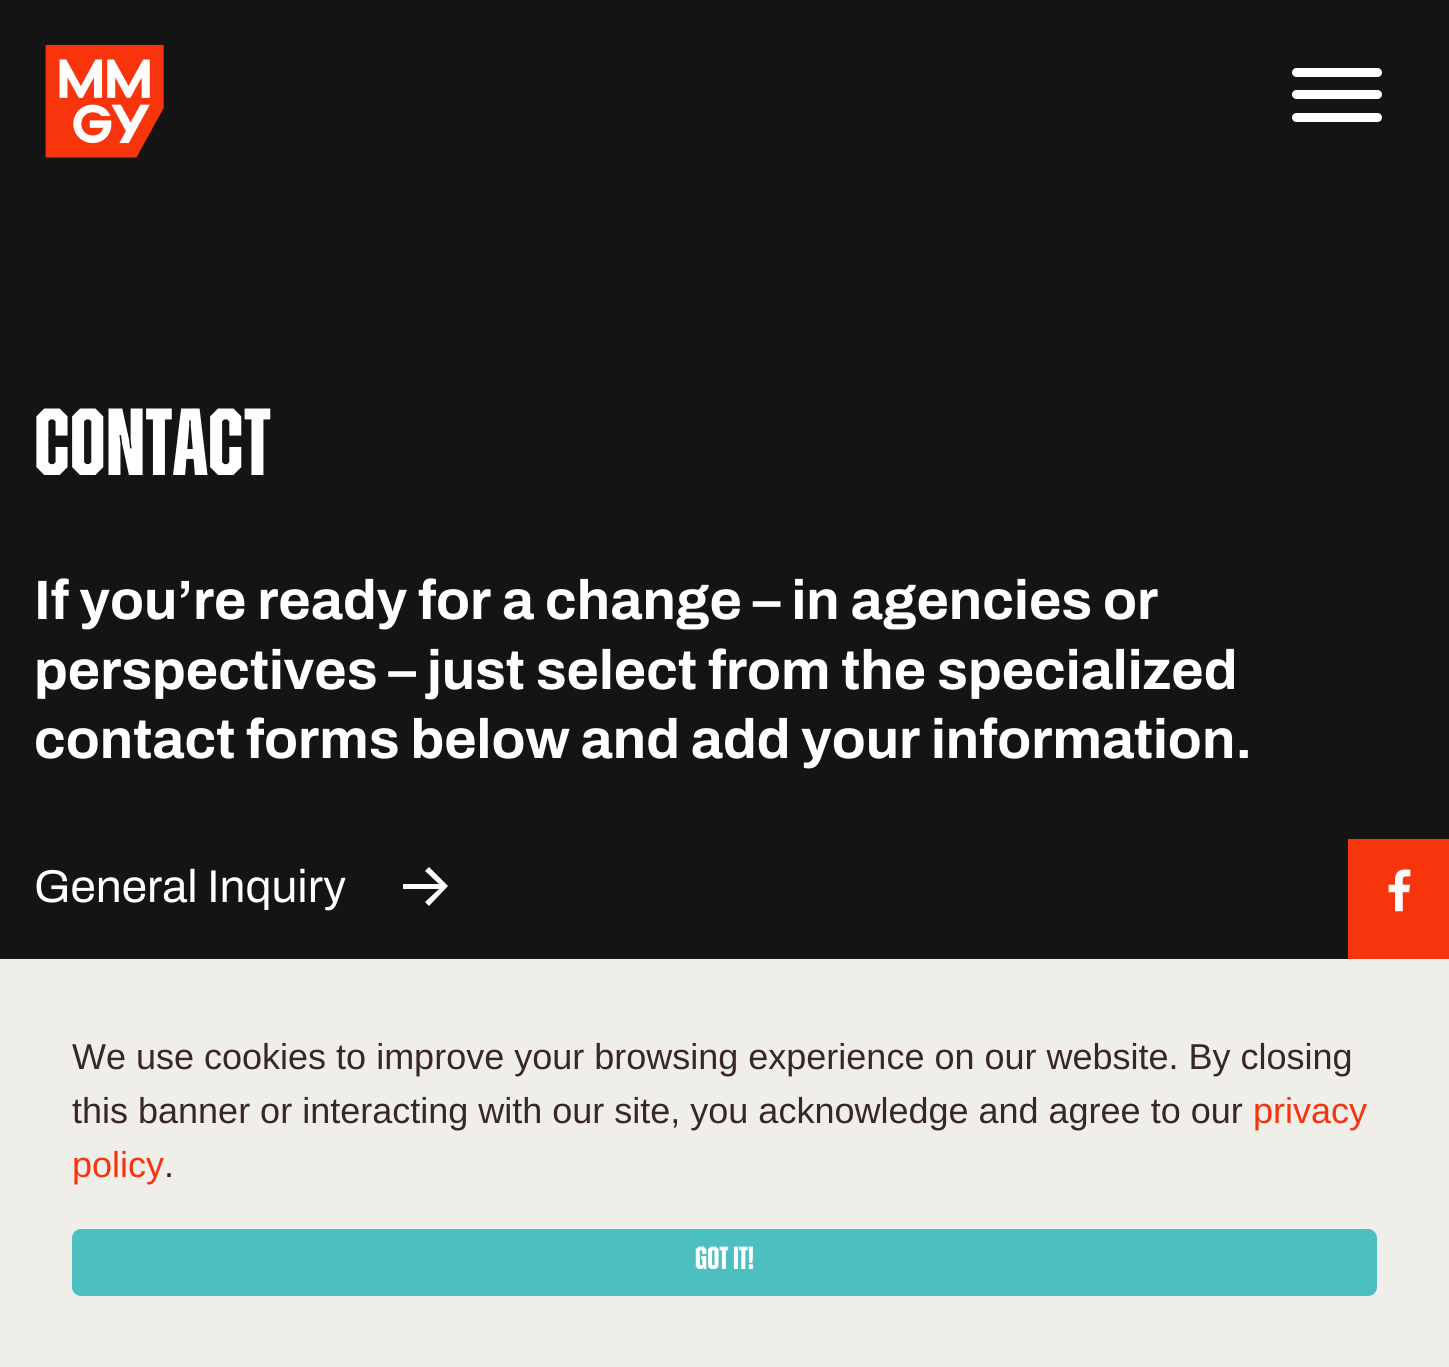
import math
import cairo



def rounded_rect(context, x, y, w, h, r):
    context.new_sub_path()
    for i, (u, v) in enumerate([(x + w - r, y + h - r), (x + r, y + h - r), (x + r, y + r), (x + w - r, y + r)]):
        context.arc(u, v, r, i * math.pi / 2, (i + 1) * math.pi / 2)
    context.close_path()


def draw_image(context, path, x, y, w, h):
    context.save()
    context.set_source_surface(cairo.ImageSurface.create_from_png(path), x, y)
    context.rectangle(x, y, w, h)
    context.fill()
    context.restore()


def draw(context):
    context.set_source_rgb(20 / 255, 20 / 255, 20 / 255)
    context.paint()
    draw_image(context, "images/1.png", 45, 45, 119, 113)
    context.set_source_rgb(1, 1, 1)
    rounded_rect(context, 1292, 90, 90, 9, 4.5)
    context.fill()
    rounded_rect(context, 1292, 68, 90, 9, 4.5)
    context.fill()
    rounded_rect(context, 1292, 113, 90, 9, 4.5)
    context.fill()
    context.new_path()
    context.move_to(439, 884)
    context.line_to(425, 871)
    context.line_to(429, 867)
    context.line_to(448, 886)
    context.line_to(429, 906)
    context.line_to(425, 902)
    context.line_to(439, 889)
    context.line_to(403, 889)
    context.line_to(403, 884)
    context.close_path()
    context.fill()
    context.set_source_rgb(248 / 255, 52 / 255, 13 / 255)
    context.rectangle(1348, 839, 101, 120)
    context.fill()
    draw_image(context, "images/2.png", 1388, 869, 23, 43)
    context.set_source_rgb(240 / 255, 238 / 255, 233 / 255)
    context.rectangle(0, 959, 1449, 408)
    context.fill()
    context.set_source_rgb(76 / 255, 191 / 255, 193 / 255)
    rounded_rect(context, 72, 1229, 1305, 67, 9)
    context.fill()
    context.select_font_face("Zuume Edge", cairo.FontSlant.NORMAL, cairo.FontWeight.BOLD)
    context.set_font_size(95)
    context.set_source_rgb(1, 1, 1)
    context.move_to(34, 475)
    context.show_text("CONTACT")
    context.select_font_face("Archivo", cairo.FontSlant.NORMAL, cairo.FontWeight.BOLD)
    context.set_font_size(55.5)
    context.move_to(34, 619)
    context.show_text("If you’re ready for a change – in agencies or")
    context.move_to(34, 689)
    context.show_text("perspectives – just select from the specialized")
    context.move_to(34, 758)
    context.show_text("contact forms below and add your information.")
    context.select_font_face("Archivo")
    context.set_font_size(46)
    context.move_to(34, 902)
    context.show_text("General Inquiry")
    context.select_font_face("Liberation Sans")
    context.set_font_size(36)
    context.set_source_rgb(56 / 255, 39 / 255, 39 / 255)
    context.move_to(72, 1069)
    context.show_text("We use cookies to improve your browsing experience on our website. By closing")
    context.move_to(72, 1123)
    context.show_text("this banner or interacting with our site, you acknowledge and agree to our")
    context.set_source_rgb(248 / 255, 52 / 255, 13 / 255)
    context.move_to(1253, 1123)
    context.show_text("privacy")
    context.move_to(72, 1177)
    context.show_text("policy")
    context.set_source_rgb(56 / 255, 39 / 255, 39 / 255)
    context.move_to(164, 1177)
    context.show_text(".")
    context.select_font_face("Zuume Edge", cairo.FontSlant.NORMAL, cairo.FontWeight.BOLD)
    context.set_font_size(32)
    context.set_source_rgb(1, 1, 1)
    context.move_to(695, 1269)
    context.show_text("GOT IT!")


surface = cairo.ImageSurface(cairo.Format.RGB24, 1449, 1367)
context = cairo.Context(surface)
options = cairo.FontOptions()
options.set_hint_metrics(cairo.HintMetrics.OFF)
options.set_hint_style(cairo.HintStyle.NONE)
context.set_font_options(options)
context.set_miter_limit(4)
draw(context)
surface.write_to_png("out.png")
